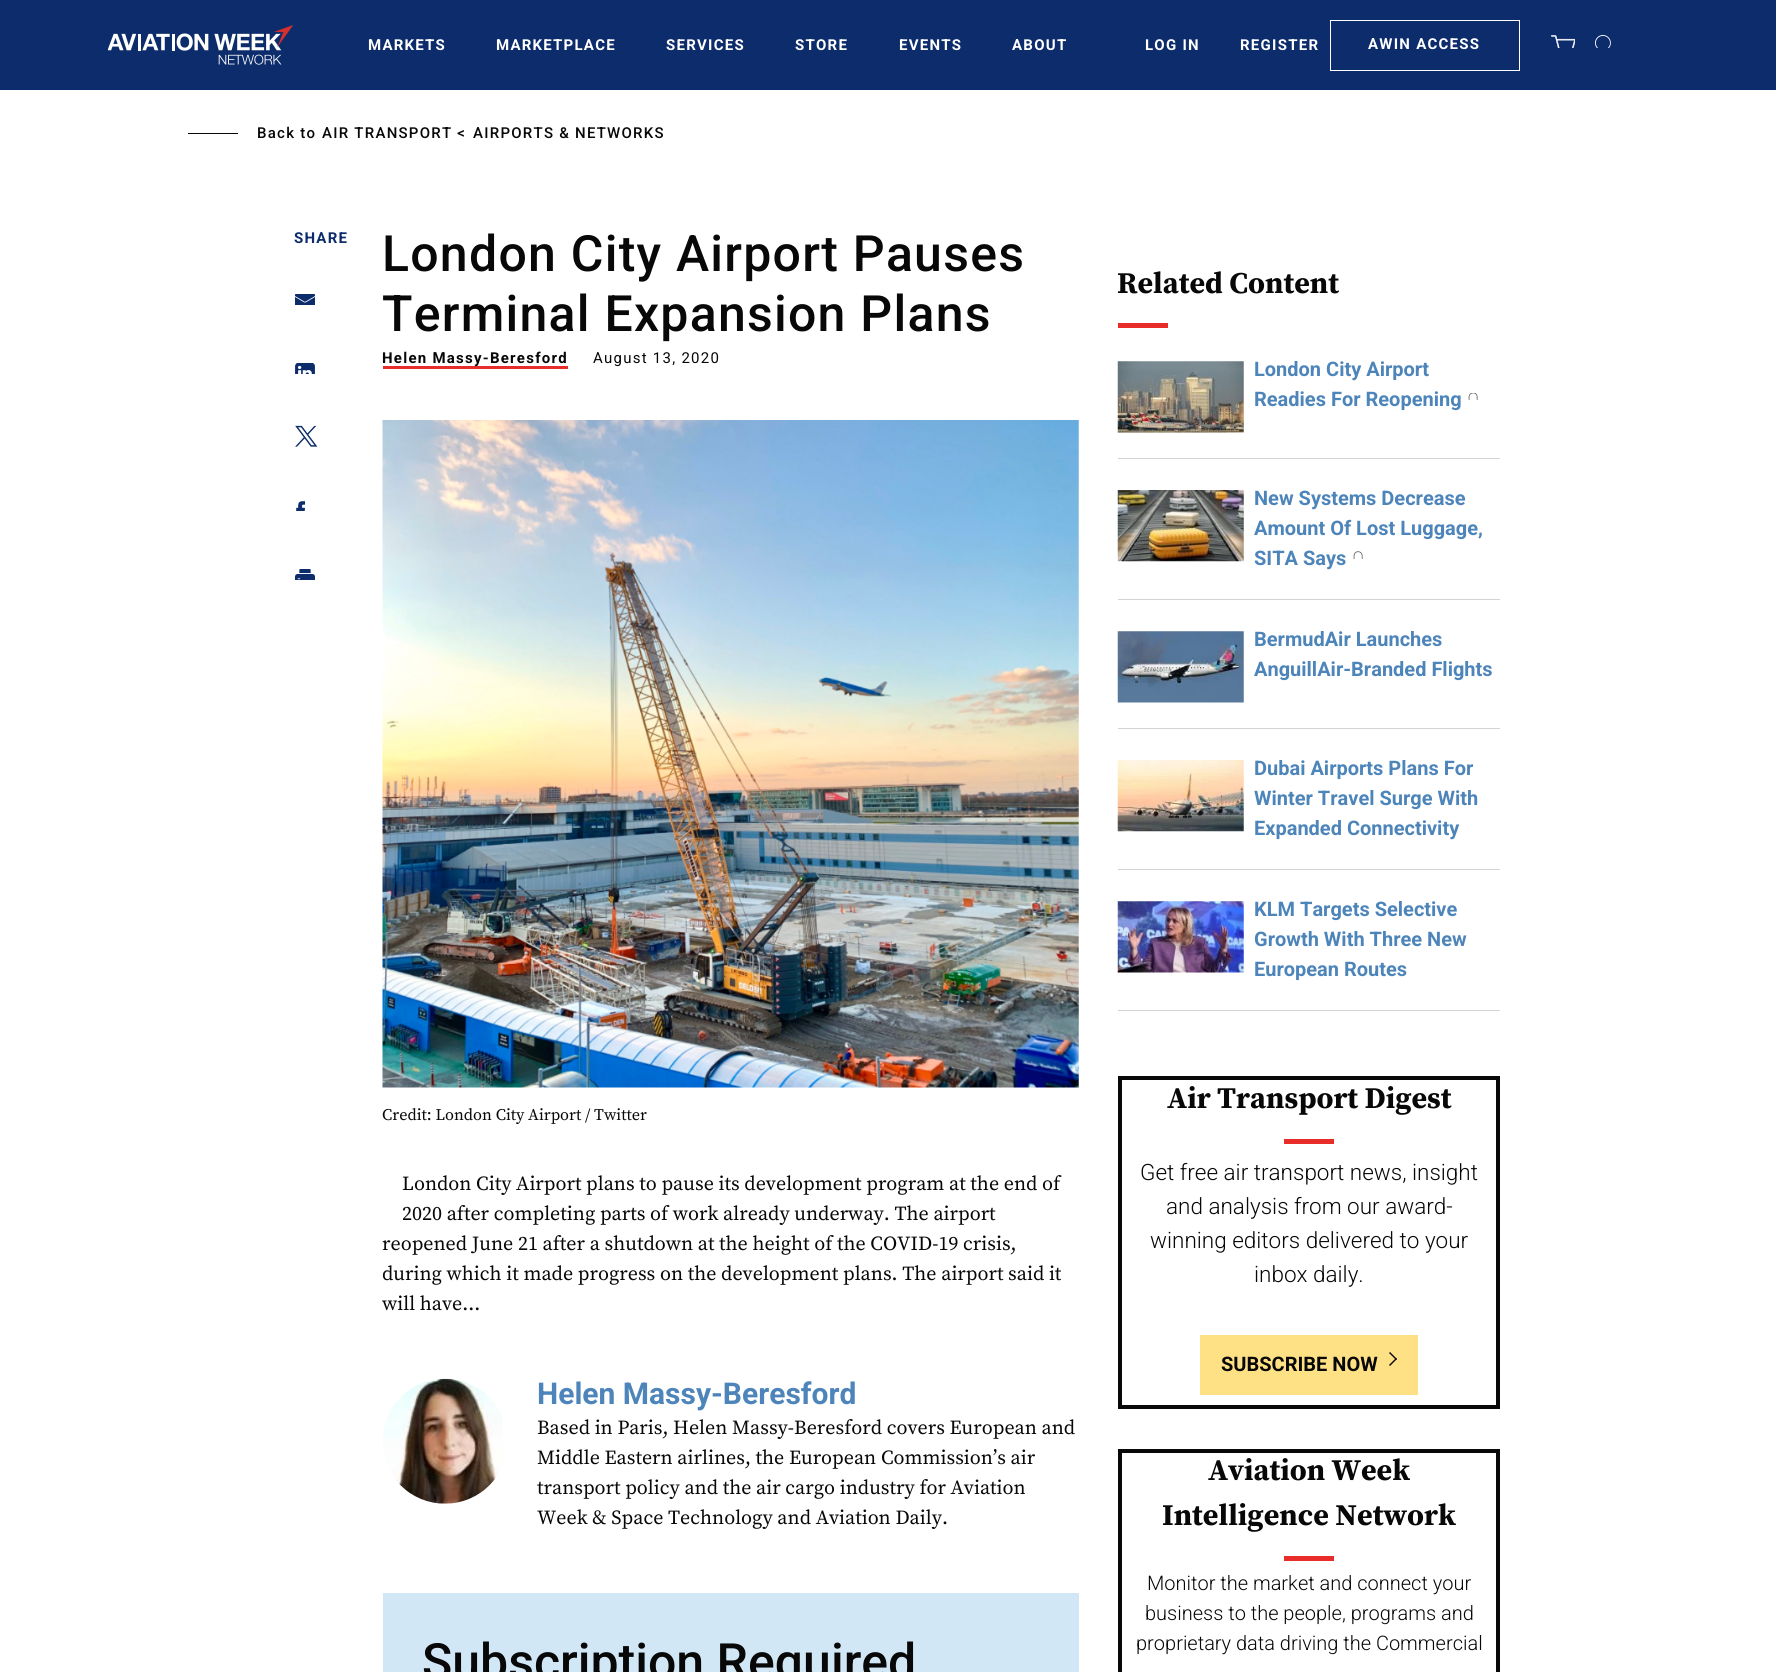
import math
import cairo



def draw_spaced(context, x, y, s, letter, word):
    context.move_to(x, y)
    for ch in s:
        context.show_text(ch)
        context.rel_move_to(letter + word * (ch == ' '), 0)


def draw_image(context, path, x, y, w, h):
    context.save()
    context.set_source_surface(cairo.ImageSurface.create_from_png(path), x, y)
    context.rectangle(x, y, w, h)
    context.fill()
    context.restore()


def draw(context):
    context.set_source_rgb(1, 1, 1)
    context.paint()
    context.set_source_rgb(13 / 255, 44 / 255, 107 / 255)
    context.rectangle(0, 0, 1776, 90)
    context.fill()
    draw_image(context, "images/1.png", 108, 25, 186, 40)
    context.rectangle(1330.5, 20.5, 189, 50)
    context.set_source_rgb(1, 1, 1)
    context.set_line_width(1)
    context.stroke()
    draw_image(context, "images/2.png", 1551, 35, 24, 13)
    draw_image(context, "images/3.png", 1595, 35, 16, 13)
    context.set_source_rgb(8 / 255, 8 / 255, 8 / 255)
    context.rectangle(188, 133, 50, 1)
    context.fill()
    draw_image(context, "images/4.png", 295, 294, 20, 11)
    draw_image(context, "images/5.png", 295, 363, 20, 11)
    draw_image(context, "images/6.png", 295, 425, 23, 22)
    draw_image(context, "images/7.png", 296, 501, 9, 10)
    draw_image(context, "images/8.png", 295, 569, 20, 11)
    draw_image(context, "images/9.png", 382, 420, 697, 668)
    draw_image(context, "images/10.png", 383, 1378, 120, 126)
    context.set_source_rgb(210 / 255, 231 / 255, 245 / 255)
    context.rectangle(383, 1593, 696, 79)
    context.fill()
    context.set_source_rgb(231 / 255, 44 / 255, 42 / 255)
    context.rectangle(1118, 323, 50, 5)
    context.fill()
    context.set_source_rgb(209 / 255, 211 / 255, 212 / 255)
    context.rectangle(1118, 458, 382, 1)
    context.fill()
    draw_image(context, "images/11.png", 1117, 361, 127, 72)
    draw_image(context, "images/12.png", 1468, 393, 10, 7)
    context.rectangle(1118, 599, 382, 1)
    context.fill()
    draw_image(context, "images/13.png", 1117, 490, 127, 72)
    draw_image(context, "images/14.png", 1353, 551, 10, 8)
    context.rectangle(1118, 728, 382, 1)
    context.fill()
    draw_image(context, "images/15.png", 1117, 631, 127, 72)
    context.rectangle(1118, 869, 382, 1)
    context.fill()
    draw_image(context, "images/16.png", 1117, 760, 127, 72)
    context.rectangle(1118, 1010, 382, 1)
    context.fill()
    draw_image(context, "images/17.png", 1117, 901, 127, 72)
    context.rectangle(1120, 1078, 378, 329)
    context.set_source_rgb(8 / 255, 8 / 255, 8 / 255)
    context.set_line_width(4)
    context.stroke()
    context.set_source_rgb(231 / 255, 44 / 255, 42 / 255)
    context.rectangle(1284, 1139, 50, 5)
    context.fill()
    context.set_source_rgb(1, 225 / 255, 133 / 255)
    context.rectangle(1200, 1335, 218, 60)
    context.fill()
    context.set_source_rgb(8 / 255, 8 / 255, 8 / 255)
    context.new_path()
    context.move_to(1390, 1352)
    context.line_to(1397, 1359)
    context.line_to(1396, 1360)
    context.line_to(1389, 1353)
    context.close_path()
    context.fill()
    context.new_path()
    context.move_to(1396, 1358)
    context.line_to(1397, 1359)
    context.line_to(1390, 1366)
    context.line_to(1389, 1365)
    context.close_path()
    context.fill()
    context.rectangle(1120, 1451, 378, 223)
    context.stroke()
    context.set_source_rgb(231 / 255, 44 / 255, 42 / 255)
    context.rectangle(1284, 1556, 50, 5)
    context.fill()
    context.select_font_face("Roboto", cairo.FontSlant.NORMAL, cairo.FontWeight.BOLD)
    context.set_font_size(15)
    context.set_source_rgb(1, 1, 1)
    draw_spaced(context, 368, 50, "MARKETS", 1.25, 0)
    draw_spaced(context, 496, 50, "MARKETPLACE", 1.25, 0)
    draw_spaced(context, 666, 50, "SERVICES", 1.25, 0)
    draw_spaced(context, 795, 50, "STORE", 1.25, 0)
    draw_spaced(context, 899, 50, "EVENTS", 1.25, 0)
    draw_spaced(context, 1012, 50, "ABOUT", 1.25, 0)
    draw_spaced(context, 1145, 50, "LOG IN", 1.25, 0)
    draw_spaced(context, 1240, 50, "REGISTER", 1.25, 0)
    draw_spaced(context, 1368, 49, "AWIN ACCESS", 1.25, 0)
    context.select_font_face("Roboto Medium")
    context.set_source_rgb(8 / 255, 8 / 255, 8 / 255)
    draw_spaced(context, 257, 138, "Back to", 1.25, 0)
    draw_spaced(context, 322, 138, "AIR TRANSPORT <", 1.25, 0)
    draw_spaced(context, 473, 138, "AIRPORTS & NETWORKS", 1.25, 0)
    context.select_font_face("Roboto", cairo.FontSlant.NORMAL, cairo.FontWeight.BOLD)
    context.set_source_rgb(13 / 255, 44 / 255, 107 / 255)
    draw_spaced(context, 294, 243, "SHARE", 1.25, 0)
    context.select_font_face("Roboto Medium")
    context.set_font_size(50)
    context.set_source_rgb(8 / 255, 8 / 255, 8 / 255)
    draw_spaced(context, 382, 271, "London City Airport Pauses", 1.25, 0)
    draw_spaced(context, 382, 331, "Terminal Expansion Plans", 1.25, 0)
    context.select_font_face("Roboto", cairo.FontSlant.NORMAL, cairo.FontWeight.BOLD)
    context.set_font_size(15)
    draw_spaced(context, 382, 363, "Helen Massy-Beresford", 1.25, 0)
    context.set_source_rgb(231 / 255, 44 / 255, 42 / 255)
    context.rectangle(383, 366, 185, 3)
    context.fill()
    context.select_font_face("Roboto")
    context.set_source_rgb(8 / 255, 8 / 255, 8 / 255)
    draw_spaced(context, 593, 363, "August 13, 2020", 1.25, 0)
    context.select_font_face("Source Serif Pro")
    context.set_font_size(16.25)
    context.move_to(382, 1120)
    context.show_text("Credit: London City Airport / Twitter")
    context.set_font_size(20)
    context.move_to(402, 1190)
    context.show_text("London City Airport plans to pause its development program at the end of")
    context.move_to(402, 1220)
    context.show_text("2020 after completing parts of work already underway. The airport")
    context.move_to(382, 1250)
    context.show_text("reopened June 21 after a shutdown at the height of the COVID-19 crisis,")
    context.move_to(382, 1280)
    context.show_text("during which it made progress on the development plans. The airport said it")
    context.move_to(382, 1310)
    context.show_text("will have...")
    context.select_font_face("Roboto", cairo.FontSlant.NORMAL, cairo.FontWeight.BOLD)
    context.set_font_size(30)
    context.set_source_rgb(77 / 255, 133 / 255, 186 / 255)
    context.move_to(537, 1404)
    context.show_text("Helen Massy-Beresford")
    context.select_font_face("Source Serif Pro")
    context.set_font_size(20)
    context.set_source_rgb(8 / 255, 8 / 255, 8 / 255)
    context.move_to(537, 1434)
    context.show_text("Based in Paris, Helen Massy-Beresford covers European and")
    context.move_to(537, 1464)
    context.show_text("Middle Eastern airlines, the European Commission’s air")
    context.move_to(537, 1494)
    context.show_text("transport policy and the air cargo industry for Aviation")
    context.move_to(537, 1524)
    context.show_text("Week & Space Technology and Aviation Daily.")
    context.select_font_face("Roboto Medium")
    context.set_font_size(50)
    context.move_to(422, 1679)
    context.show_text("Subscription Required")
    context.select_font_face("Source Serif Pro", cairo.FontSlant.NORMAL, cairo.FontWeight.BOLD)
    context.set_font_size(30)
    context.move_to(1117, 293)
    context.show_text("Related Content")
    context.select_font_face("Roboto", cairo.FontSlant.NORMAL, cairo.FontWeight.BOLD)
    context.set_font_size(20)
    context.set_source_rgb(77 / 255, 133 / 255, 186 / 255)
    context.move_to(1254, 376)
    context.show_text("London City Airport")
    context.move_to(1254, 406)
    context.show_text("Readies For Reopening")
    context.move_to(1254, 505)
    context.show_text("New Systems Decrease")
    context.move_to(1254, 535)
    context.show_text("Amount Of Lost Luggage,")
    context.move_to(1254, 565)
    context.show_text("SITA Says")
    context.move_to(1254, 646)
    context.show_text("BermudAir Launches")
    context.move_to(1254, 676)
    context.show_text("AnguillAir-Branded Flights")
    context.move_to(1254, 775)
    context.show_text("Dubai Airports Plans For")
    context.move_to(1254, 805)
    context.show_text("Winter Travel Surge With")
    context.move_to(1254, 835)
    context.show_text("Expanded Connectivity")
    context.move_to(1254, 916)
    context.show_text("KLM Targets Selective")
    context.move_to(1254, 946)
    context.show_text("Growth With Three New")
    context.move_to(1254, 976)
    context.show_text("European Routes")
    context.select_font_face("Source Serif Pro", cairo.FontSlant.NORMAL, cairo.FontWeight.BOLD)
    context.set_font_size(30)
    context.set_source_rgb(8 / 255, 8 / 255, 8 / 255)
    context.move_to(1167, 1108)
    context.show_text("Air Transport Digest")
    context.select_font_face("Roboto Light")
    context.set_font_size(22.5)
    context.move_to(1140, 1180)
    context.show_text("Get free air transport news, insight")
    context.move_to(1166, 1214)
    context.show_text("and analysis from our award-")
    context.move_to(1150, 1248)
    context.show_text("winning editors delivered to your")
    context.move_to(1254, 1282)
    context.show_text("inbox daily.")
    context.select_font_face("Roboto", cairo.FontSlant.NORMAL, cairo.FontWeight.BOLD)
    context.set_font_size(20)
    context.move_to(1221, 1371)
    context.show_text("SUBSCRIBE NOW")
    context.select_font_face("Source Serif Pro", cairo.FontSlant.NORMAL, cairo.FontWeight.BOLD)
    context.set_font_size(30)
    context.move_to(1208, 1480)
    context.show_text("Aviation Week")
    context.move_to(1162, 1525)
    context.show_text("Intelligence Network")
    context.select_font_face("Roboto Light")
    context.set_font_size(20)
    context.move_to(1147, 1590)
    context.show_text("Monitor the market and connect your")
    context.move_to(1145, 1620)
    context.show_text("business to the people, programs and")
    context.move_to(1136, 1650)
    context.show_text("proprietary data driving the Commercial")


surface = cairo.ImageSurface(cairo.Format.RGB24, 1776, 1672)
context = cairo.Context(surface)
options = cairo.FontOptions()
options.set_hint_metrics(cairo.HintMetrics.OFF)
options.set_hint_style(cairo.HintStyle.NONE)
context.set_font_options(options)
context.set_miter_limit(4)
draw(context)
surface.write_to_png("out.png")
